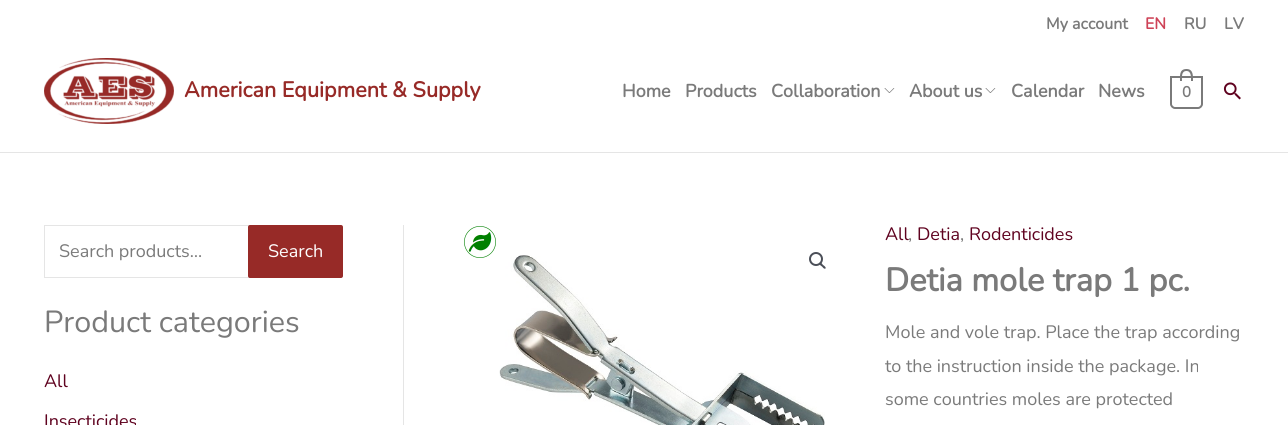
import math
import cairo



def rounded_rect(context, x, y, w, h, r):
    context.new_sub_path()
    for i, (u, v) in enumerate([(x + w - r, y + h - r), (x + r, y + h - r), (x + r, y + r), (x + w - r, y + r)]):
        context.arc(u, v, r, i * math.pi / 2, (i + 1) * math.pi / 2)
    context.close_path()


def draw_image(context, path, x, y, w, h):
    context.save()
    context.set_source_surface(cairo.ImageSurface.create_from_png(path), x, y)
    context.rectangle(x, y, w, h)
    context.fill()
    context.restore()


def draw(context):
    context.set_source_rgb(1, 1, 1)
    context.paint()
    context.set_source_rgb(229 / 255, 229 / 255, 229 / 255)
    context.rectangle(0, 152, 1288, 1)
    context.fill()
    draw_image(context, "images/1.png", 44, 58, 130, 66)
    draw_image(context, "images/2.png", 884, 88, 11, 5)
    draw_image(context, "images/2.png", 985, 88, 11, 5)
    context.new_path()
    context.move_to(1171, 77)
    context.line_to(1202, 77)
    context.line_to(1202, 104)
    context.curve_to(1202, 106, 1200, 108, 1198, 108)
    context.line_to(1175, 108)
    context.curve_to(1173, 108, 1171, 106, 1171, 104)
    context.close_path()
    context.set_source_rgb(122 / 255, 122 / 255, 122 / 255)
    context.stroke()
    context.set_fill_rule(cairo.FillRule.EVEN_ODD)
    context.new_path()
    context.move_to(1186.5, 69)
    context.curve_to(1193.5, 69, 1193, 76, 1193, 81)
    context.line_to(1180, 81)
    context.curve_to(1180, 76, 1179, 69, 1186.5, 69)
    context.close_path()
    context.move_to(1186.5, 71)
    context.curve_to(1191.5, 71, 1191, 77.5, 1191, 81)
    context.line_to(1182, 81)
    context.curve_to(1182, 77.5, 1181, 71, 1186.5, 71)
    context.close_path()
    context.fill()
    draw_image(context, "images/3.png", 1223, 82, 18, 18)
    context.set_source_rgb(229 / 255, 229 / 255, 229 / 255)
    context.rectangle(403, 225, 1, 200)
    context.fill()
    context.rectangle(44.5, 225.5, 253, 52)
    context.set_line_width(1)
    context.stroke()
    context.set_source_rgb(151 / 255, 42 / 255, 39 / 255)
    rounded_rect(context, 248, 225, 95, 53, 2)
    context.fill()
    draw_image(context, "images/4.png", 464, 226, 32, 32)
    draw_image(context, "images/5.png", 499, 255, 326, 170)
    context.arc(816, 259, 6, 0, 2 * math.pi)
    context.set_source_rgb(75 / 255, 79 / 255, 88 / 255)
    context.set_line_width(2)
    context.stroke()
    context.set_fill_rule(cairo.FillRule.WINDING)
    context.new_path()
    context.move_to(819.5, 263)
    context.curve_to(821, 261.5, 822.5, 264.5, 823, 265)
    context.curve_to(824, 265.5, 826.5, 267.5, 825.5, 268.5)
    context.curve_to(824, 269.5, 822.5, 267, 822, 266.5)
    context.curve_to(821, 266, 818.5, 264, 819.5, 263)
    context.close_path()
    context.fill()
    context.select_font_face("Nunito", cairo.FontSlant.NORMAL, cairo.FontWeight.BOLD)
    context.set_font_size(16)
    context.set_source_rgb(122 / 255, 122 / 255, 122 / 255)
    context.move_to(1046, 29)
    context.show_text("My account")
    context.set_source_rgb(206 / 255, 66 / 255, 87 / 255)
    context.move_to(1145, 29)
    context.show_text("EN")
    context.set_source_rgb(122 / 255, 122 / 255, 122 / 255)
    context.move_to(1184, 29)
    context.show_text("RU")
    context.move_to(1224, 29)
    context.show_text("LV")
    context.set_font_size(21.6)
    context.set_source_rgb(151 / 255, 42 / 255, 39 / 255)
    context.move_to(184, 97)
    context.show_text("American Equipment & Supply")
    context.set_font_size(18)
    context.set_source_rgb(122 / 255, 122 / 255, 122 / 255)
    context.move_to(622, 97)
    context.show_text("Home")
    context.move_to(685, 97)
    context.show_text("Products")
    context.move_to(771, 97)
    context.show_text("Collaboration")
    context.move_to(909, 97)
    context.show_text("About us")
    context.move_to(1011, 97)
    context.show_text("Calendar")
    context.move_to(1098, 97)
    context.show_text("News")
    context.set_font_size(15)
    context.move_to(1182, 97)
    context.show_text("0")
    context.select_font_face("Nunito ExtraLight")
    context.set_font_size(18)
    context.move_to(59, 257)
    context.show_text("Search products…")
    context.set_source_rgb(1, 1, 1)
    context.move_to(268, 257)
    context.show_text("Search")
    context.set_font_size(30.5)
    context.set_source_rgb(122 / 255, 122 / 255, 122 / 255)
    context.move_to(44, 332)
    context.show_text("Product categories")
    context.set_font_size(18)
    context.set_source_rgb(95 / 255, 2 / 255, 31 / 255)
    context.move_to(44, 387)
    context.show_text("All")
    context.move_to(44, 427)
    context.show_text("Insecticides")
    context.move_to(885, 240)
    context.show_text("All")
    context.set_source_rgb(122 / 255, 122 / 255, 122 / 255)
    context.move_to(908, 240)
    context.show_text(",")
    context.set_source_rgb(95 / 255, 2 / 255, 31 / 255)
    context.move_to(917, 240)
    context.show_text("Detia")
    context.set_source_rgb(122 / 255, 122 / 255, 122 / 255)
    context.move_to(960, 240)
    context.show_text(",")
    context.set_source_rgb(95 / 255, 2 / 255, 31 / 255)
    context.move_to(969, 240)
    context.show_text("Rodenticides")
    context.select_font_face("Nunito", cairo.FontSlant.NORMAL, cairo.FontWeight.BOLD)
    context.set_font_size(32.6)
    context.set_source_rgb(122 / 255, 122 / 255, 122 / 255)
    context.move_to(885, 291)
    context.show_text("Detia mole trap 1 pc.")
    context.select_font_face("Nunito ExtraLight")
    context.set_font_size(18)
    context.move_to(885, 338)
    context.show_text("Mole and vole trap. Place the trap according")
    context.move_to(885, 372)
    context.show_text("to the instruction inside the package. In")
    context.move_to(885, 405)
    context.show_text("some countries moles are protected")


surface = cairo.ImageSurface(cairo.Format.RGB24, 1288, 425)
context = cairo.Context(surface)
options = cairo.FontOptions()
options.set_hint_metrics(cairo.HintMetrics.OFF)
options.set_hint_style(cairo.HintStyle.NONE)
context.set_font_options(options)
context.set_miter_limit(4)
draw(context)
surface.write_to_png("out.png")
